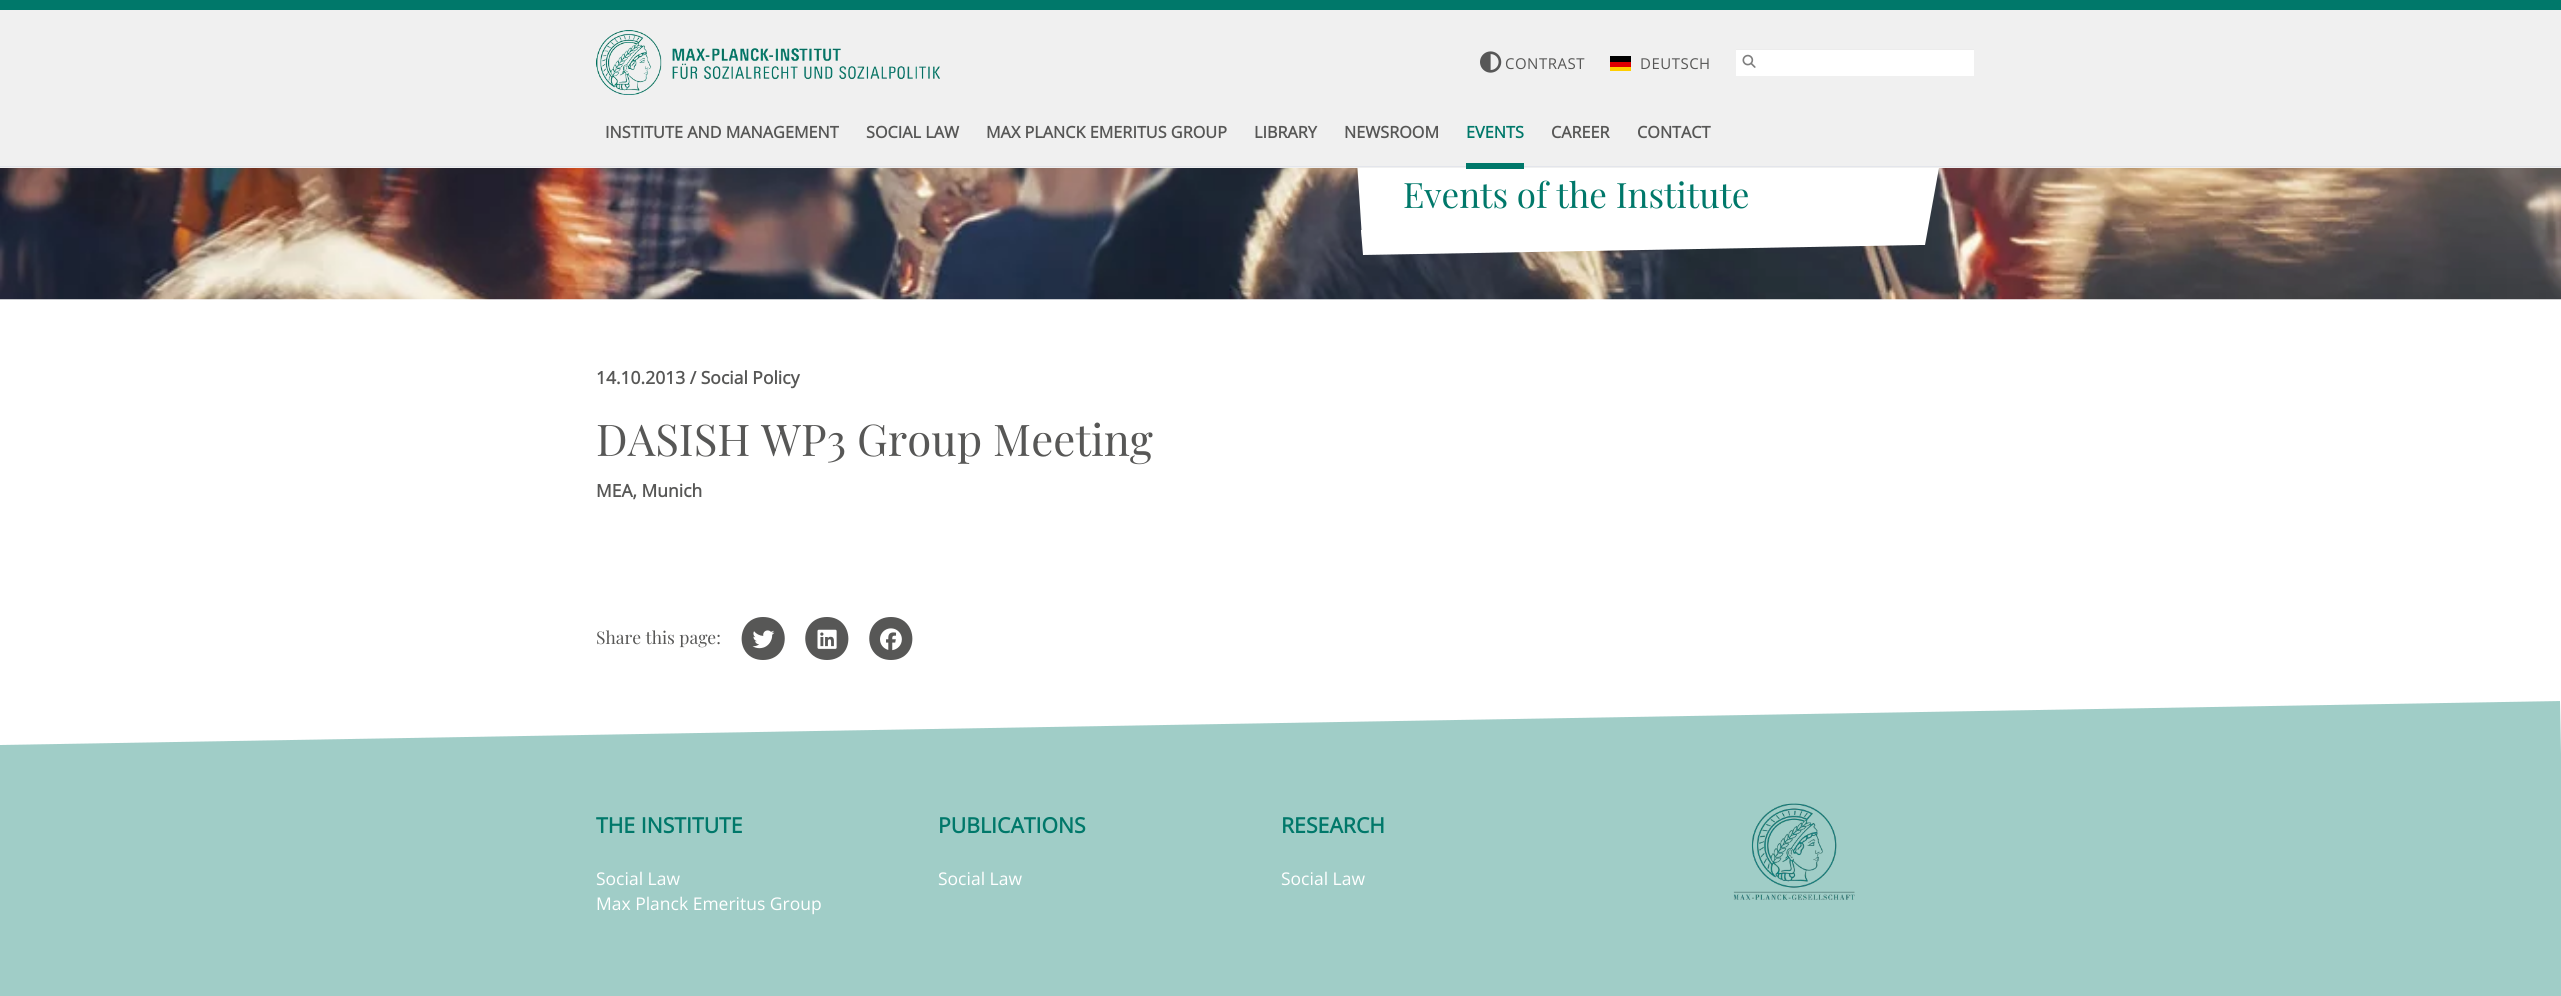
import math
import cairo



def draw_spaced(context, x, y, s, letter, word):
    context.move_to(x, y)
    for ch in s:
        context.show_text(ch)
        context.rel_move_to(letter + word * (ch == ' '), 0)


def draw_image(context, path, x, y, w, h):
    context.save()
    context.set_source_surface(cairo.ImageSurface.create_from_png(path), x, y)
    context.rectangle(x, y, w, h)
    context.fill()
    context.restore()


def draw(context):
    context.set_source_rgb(1, 1, 1)
    context.paint()
    draw_image(context, "images/4.png", 0, 168, 2561, 132)
    context.set_source_rgb(1, 1, 1)
    context.new_path()
    context.move_to(1356, 146)
    context.line_to(1912, 146)
    context.line_to(1918, 238)
    context.line_to(1362, 238)
    context.close_path()
    context.fill()
    context.new_path()
    context.move_to(1361, 230)
    context.line_to(1917, 220)
    context.line_to(1919, 245)
    context.line_to(1363, 255)
    context.close_path()
    context.fill()
    context.new_path()
    context.move_to(1899, 146)
    context.line_to(1943, 146)
    context.line_to(1925, 245)
    context.line_to(1881, 245)
    context.close_path()
    context.fill()
    context.set_source_rgb(240 / 255, 240 / 255, 240 / 255)
    context.rectangle(0, 10, 2561, 158)
    context.fill()
    context.set_source_rgb(0, 120 / 255, 106 / 255)
    context.rectangle(0, 0, 2561, 10)
    context.fill()
    context.set_source_rgb(227 / 255, 229 / 255, 235 / 255)
    context.rectangle(0, 166, 2561, 1)
    context.fill()
    draw_image(context, "images/1.png", 596, 30, 344, 65)
    draw_image(context, "images/2.png", 1480, 51, 22, 22)
    context.set_source_rgb(1, 206 / 255, 0)
    context.rectangle(1610, 67, 21, 4)
    context.fill()
    context.set_source_rgb(0, 0, 0)
    context.rectangle(1610, 56, 21, 6)
    context.fill()
    context.set_source_rgb(221 / 255, 0, 0)
    context.rectangle(1610, 62, 21, 5)
    context.fill()
    context.set_source_rgb(1, 1, 1)
    context.rectangle(1736, 50, 238, 26)
    context.fill()
    context.set_source_rgb(236 / 255, 236 / 255, 236 / 255)
    context.rectangle(1736, 49, 238, 1)
    context.fill()
    draw_image(context, "images/3.png", 1742, 54, 14, 14)
    context.set_source_rgb(0, 120 / 255, 106 / 255)
    context.rectangle(1466, 163, 58, 6)
    context.fill()
    context.set_source_rgb(87 / 255, 87 / 255, 86 / 255)
    context.new_path()
    context.move_to(763, 660)
    context.curve_to(792, 660, 792, 617, 763, 617)
    context.curve_to(735, 617, 734, 660, 763, 660)
    context.close_path()
    context.fill()
    draw_image(context, "images/5.png", 752, 630, 23, 19)
    context.new_path()
    context.move_to(827, 660)
    context.curve_to(856, 660, 855, 617, 827, 617)
    context.curve_to(798, 617, 798, 660, 827, 660)
    context.close_path()
    context.fill()
    draw_image(context, "images/6.png", 817, 629, 20, 20)
    context.new_path()
    context.move_to(891, 660)
    context.curve_to(920, 660, 919, 617, 891, 617)
    context.curve_to(862, 617, 862, 660, 891, 660)
    context.close_path()
    context.fill()
    draw_image(context, "images/7.png", 880, 628, 22, 23)
    context.set_source_rgb(160 / 255, 205 / 255, 199 / 255)
    context.rectangle(0, 799, 2561, 197)
    context.fill()
    context.new_path()
    context.move_to(-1, 745)
    context.line_to(2560, 701)
    context.line_to(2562, 807)
    context.line_to(1, 852)
    context.close_path()
    context.fill()
    draw_image(context, "images/8.png", 1733, 803, 122, 97)
    context.select_font_face("Open Sans")
    context.set_font_size(15)
    context.set_source_rgb(87 / 255, 87 / 255, 86 / 255)
    draw_spaced(context, 1505, 69, "CONTRAST", 0.5, 0)
    draw_spaced(context, 1640, 69, "DEUTSCH", 0.5, 0)
    context.select_font_face("Open Sans", cairo.FontSlant.NORMAL, cairo.FontWeight.BOLD)
    context.set_font_size(16.25)
    context.move_to(605, 138)
    context.show_text("INSTITUTE AND MANAGEMENT")
    context.move_to(866, 138)
    context.show_text("SOCIAL LAW")
    context.move_to(986, 138)
    context.show_text("MAX PLANCK EMERITUS GROUP")
    context.move_to(1254, 138)
    context.show_text("LIBRARY")
    context.move_to(1344, 138)
    context.show_text("NEWSROOM")
    context.set_source_rgb(0, 120 / 255, 106 / 255)
    context.move_to(1466, 138)
    context.show_text("EVENTS")
    context.set_source_rgb(87 / 255, 87 / 255, 86 / 255)
    context.move_to(1551, 138)
    context.show_text("CAREER")
    context.move_to(1637, 138)
    context.show_text("CONTACT")
    context.select_font_face("Playfair Display")
    context.set_font_size(35)
    context.set_source_rgb(0, 120 / 255, 106 / 255)
    context.move_to(1403, 208)
    context.show_text("Events of the Institute")
    context.select_font_face("Open Sans", cairo.FontSlant.NORMAL, cairo.FontWeight.BOLD)
    context.set_font_size(17.5)
    context.set_source_rgb(87 / 255, 87 / 255, 86 / 255)
    context.move_to(596, 384)
    context.show_text("14.10.2013 / Social Policy")
    context.select_font_face("Playfair Display")
    context.set_font_size(43.75)
    context.move_to(596, 456)
    context.show_text("DASISH WP3 Group Meeting")
    context.select_font_face("Open Sans", cairo.FontSlant.NORMAL, cairo.FontWeight.BOLD)
    context.set_font_size(17.5)
    context.move_to(596, 497)
    context.show_text("MEA, Munich")
    context.select_font_face("Playfair Display")
    context.move_to(596, 644)
    context.show_text("Share this page:")
    context.select_font_face("Open Sans", cairo.FontSlant.NORMAL, cairo.FontWeight.BOLD)
    context.set_font_size(21.25)
    context.set_source_rgb(0, 120 / 255, 106 / 255)
    context.move_to(596, 833)
    context.show_text("THE INSTITUTE")
    context.select_font_face("Open Sans")
    context.set_font_size(17.5)
    context.set_source_rgb(1, 1, 1)
    context.move_to(596, 885)
    context.show_text("Social Law")
    context.move_to(596, 910)
    context.show_text("Max Planck Emeritus Group")
    context.select_font_face("Open Sans", cairo.FontSlant.NORMAL, cairo.FontWeight.BOLD)
    context.set_font_size(21.25)
    context.set_source_rgb(0, 120 / 255, 106 / 255)
    context.move_to(938, 833)
    context.show_text("PUBLICATIONS")
    context.select_font_face("Open Sans")
    context.set_font_size(17.5)
    context.set_source_rgb(1, 1, 1)
    context.move_to(938, 885)
    context.show_text("Social Law")
    context.select_font_face("Open Sans", cairo.FontSlant.NORMAL, cairo.FontWeight.BOLD)
    context.set_font_size(21.25)
    context.set_source_rgb(0, 120 / 255, 106 / 255)
    context.move_to(1281, 833)
    context.show_text("RESEARCH")
    context.select_font_face("Open Sans")
    context.set_font_size(17.5)
    context.set_source_rgb(1, 1, 1)
    context.move_to(1281, 885)
    context.show_text("Social Law")


surface = cairo.ImageSurface(cairo.Format.RGB24, 2561, 996)
context = cairo.Context(surface)
options = cairo.FontOptions()
options.set_hint_metrics(cairo.HintMetrics.OFF)
options.set_hint_style(cairo.HintStyle.NONE)
context.set_font_options(options)
context.set_miter_limit(4)
draw(context)
surface.write_to_png("out.png")
